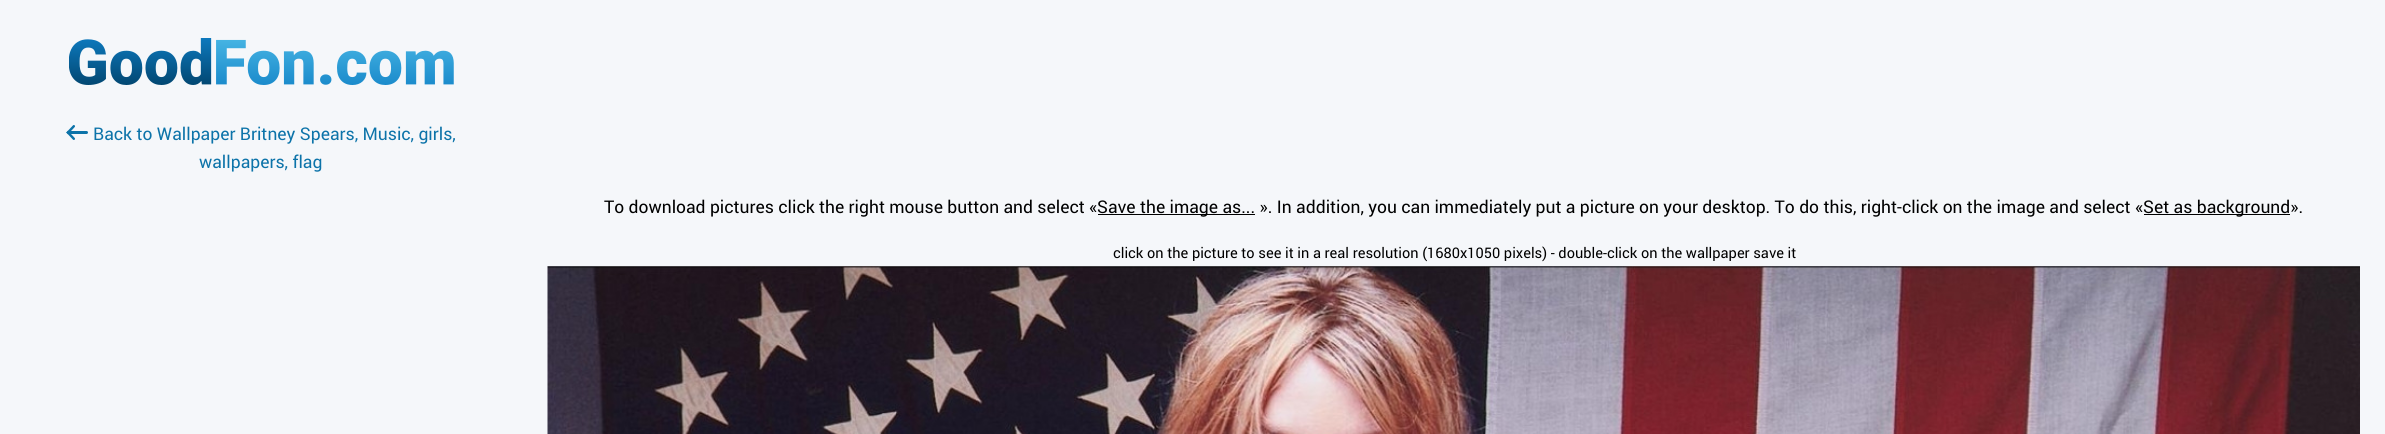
import math
import cairo



def draw_image(context, path, x, y, w, h):
    context.save()
    context.set_source_surface(cairo.ImageSurface.create_from_png(path), x, y)
    context.rectangle(x, y, w, h)
    context.fill()
    context.restore()


def draw(context):
    context.set_source_rgb(245 / 255, 247 / 255, 250 / 255)
    context.paint()
    draw_image(context, "images/1.png", 69, 38, 385, 47)
    draw_image(context, "images/2.png", 66, 125, 22, 15)
    context.set_source_rgb(0, 0, 0)
    context.rectangle(1098, 214, 157, 1)
    context.fill()
    context.rectangle(2144, 214, 146, 1)
    context.fill()
    draw_image(context, "images/3.png", 547, 266, 1813, 168)
    context.select_font_face("Roboto")
    context.set_font_size(17.5)
    context.set_source_rgb(12 / 255, 115 / 255, 169 / 255)
    context.move_to(93, 140)
    context.show_text("Back to Wallpaper Britney Spears, Music, girls,")
    context.move_to(199, 168)
    context.show_text("wallpapers, flag")
    context.set_source_rgb(0, 0, 0)
    context.move_to(604, 213)
    context.show_text("To download pictures click the right mouse button and select «")
    context.move_to(1097, 213)
    context.show_text("Save the image as... ». In addition, you can immediately put a picture on your desktop. To do this, right-click on the image and select «")
    context.move_to(2143, 213)
    context.show_text("Set as background».")
    context.set_font_size(14.6)
    context.move_to(1113, 258)
    context.show_text("click on the picture to see it in a real resolution (1680x1050 pixels) - double-click on the wallpaper save it")


surface = cairo.ImageSurface(cairo.Format.RGB24, 2385, 434)
context = cairo.Context(surface)
options = cairo.FontOptions()
options.set_hint_metrics(cairo.HintMetrics.OFF)
options.set_hint_style(cairo.HintStyle.NONE)
context.set_font_options(options)
context.set_miter_limit(4)
draw(context)
surface.write_to_png("out.png")
